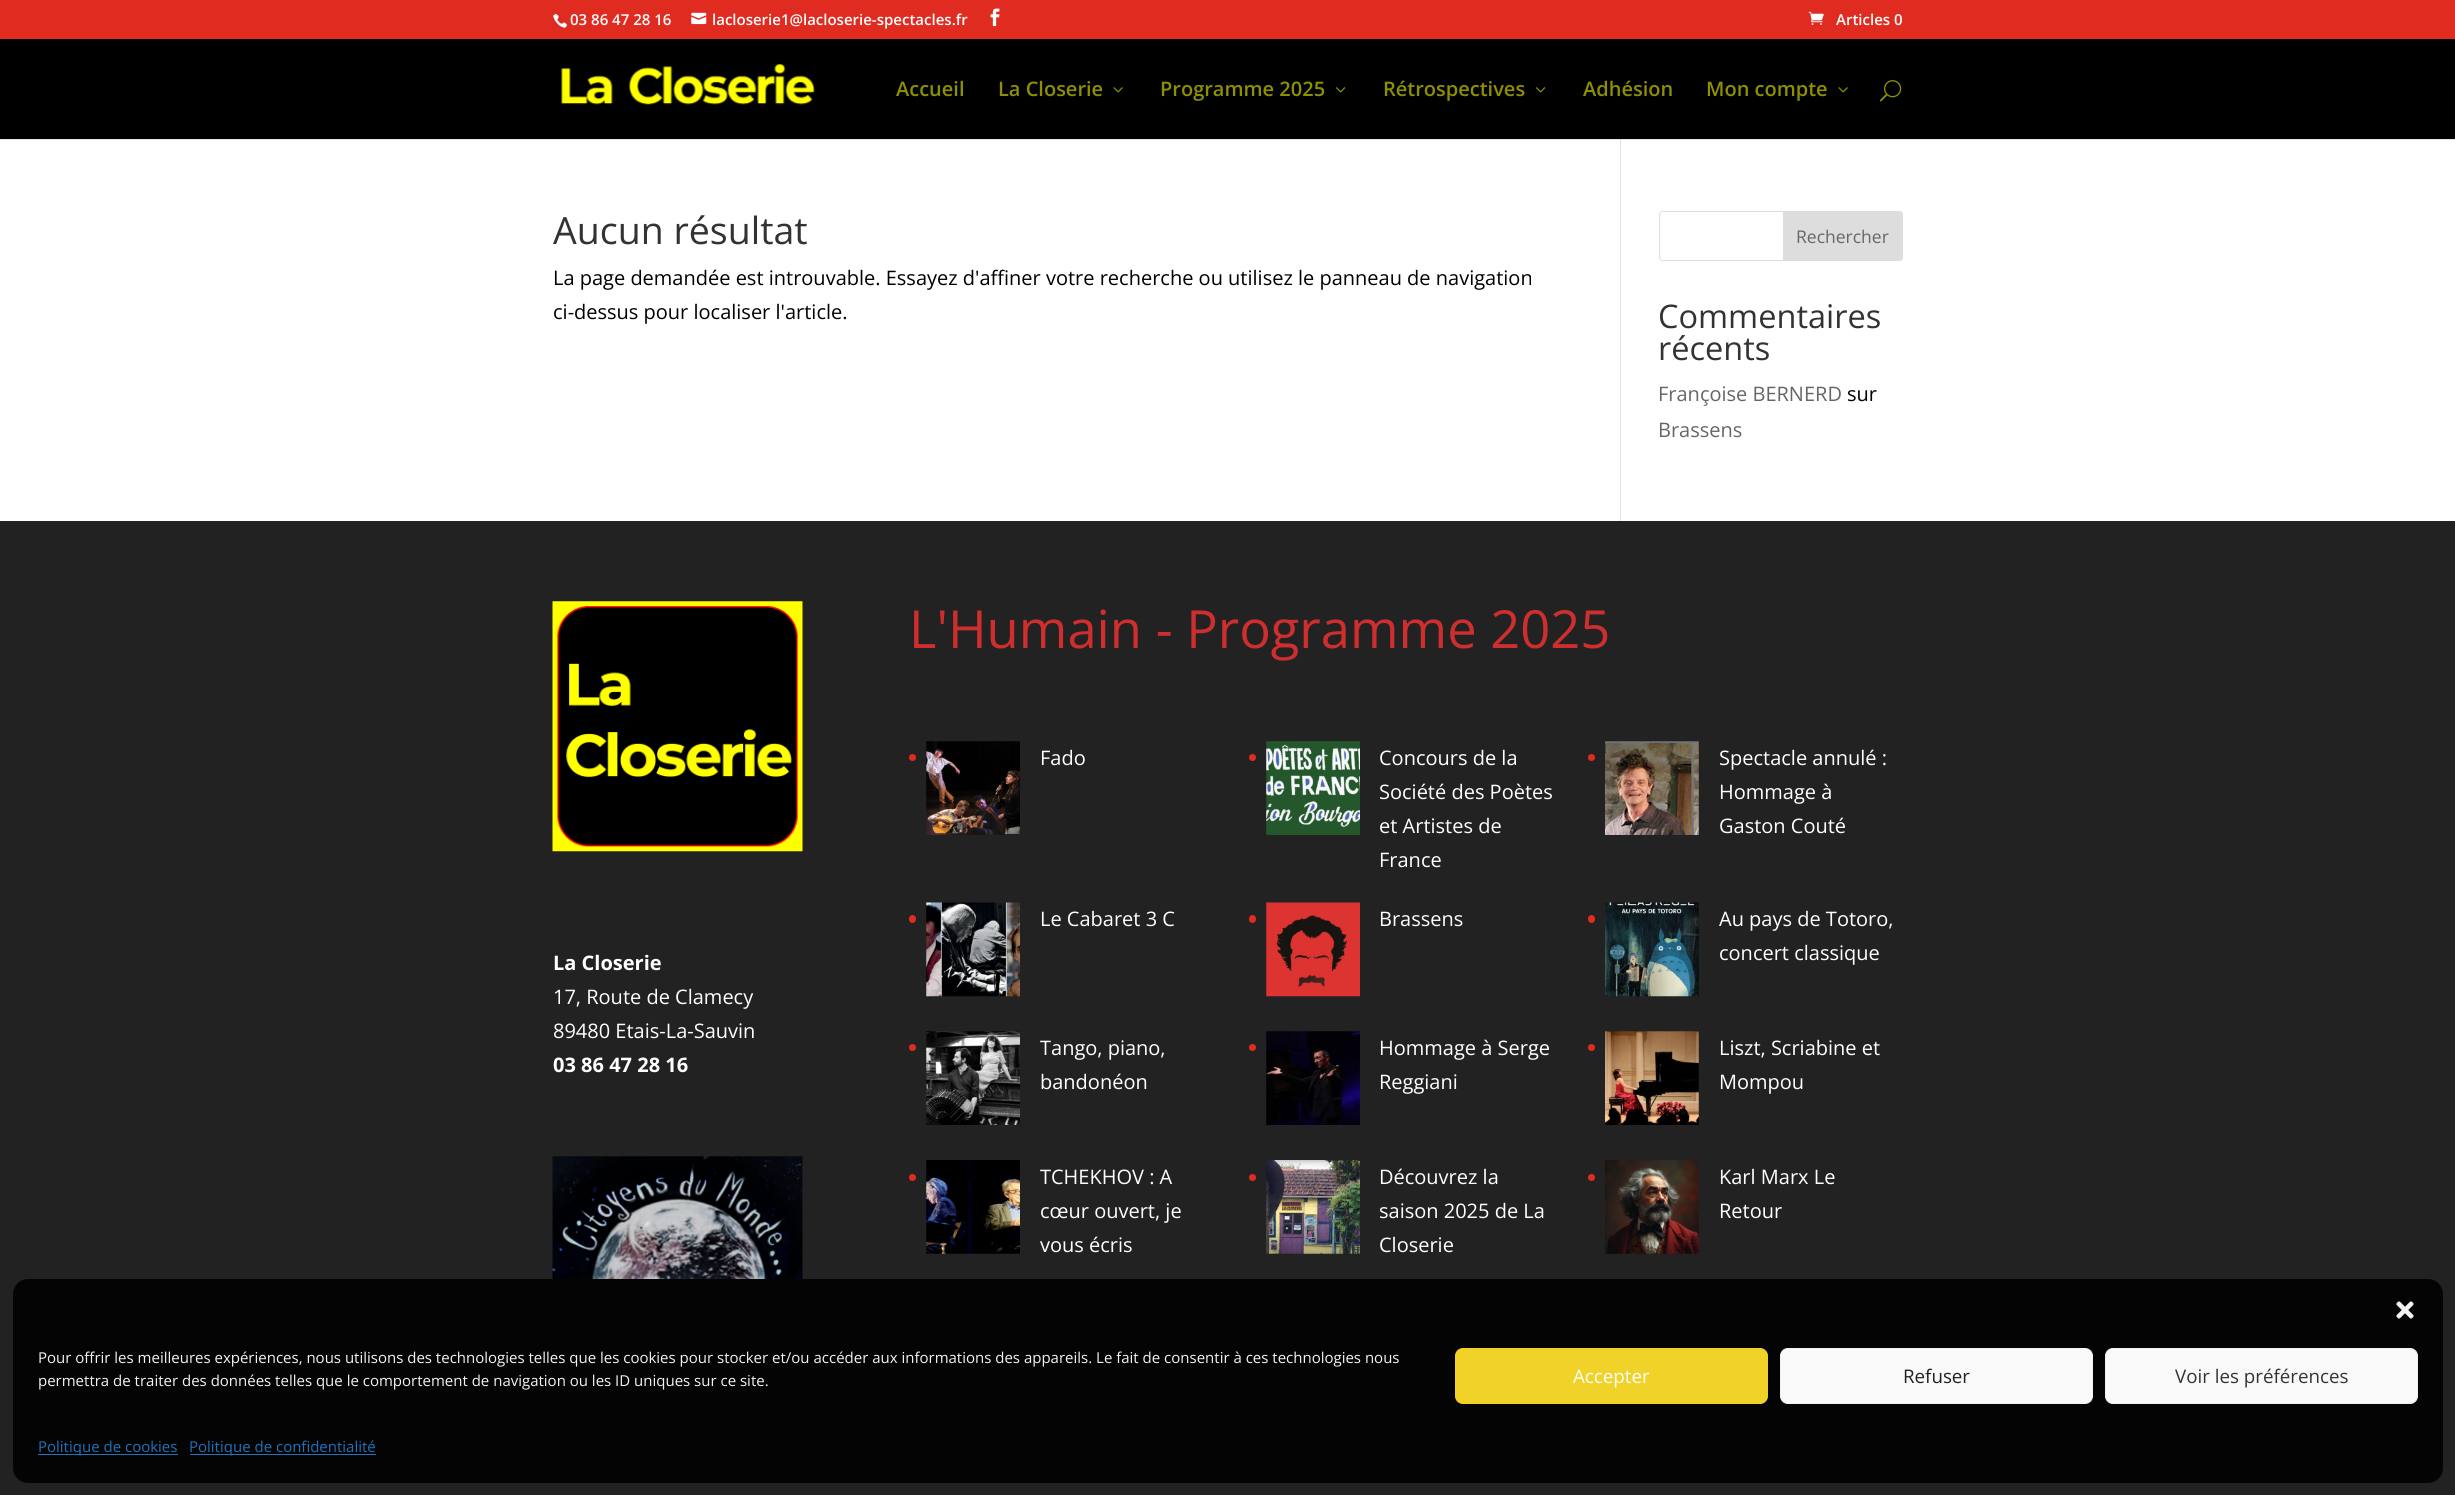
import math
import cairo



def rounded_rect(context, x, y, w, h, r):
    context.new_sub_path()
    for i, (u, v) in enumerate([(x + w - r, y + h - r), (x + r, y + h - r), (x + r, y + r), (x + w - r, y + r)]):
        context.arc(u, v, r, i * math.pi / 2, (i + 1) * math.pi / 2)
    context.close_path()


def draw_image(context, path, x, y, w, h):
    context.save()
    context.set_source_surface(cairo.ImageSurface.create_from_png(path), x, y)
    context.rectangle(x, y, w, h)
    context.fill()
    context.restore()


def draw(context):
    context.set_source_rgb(0, 0, 0)
    context.paint()
    context.set_source_rgb(224 / 255, 43 / 255, 32 / 255)
    context.rectangle(0, 0, 2455, 39)
    context.fill()
    draw_image(context, "images/1.png", 553, 14, 14, 14)
    draw_image(context, "images/2.png", 691, 12, 16, 13)
    draw_image(context, "images/3.png", 990, 8, 10, 19)
    draw_image(context, "images/4.png", 1808, 11, 16, 14)
    draw_image(context, "images/5.png", 561, 63, 254, 42)
    draw_image(context, "images/6.png", 1113, 87, 10, 6)
    draw_image(context, "images/7.png", 1336, 87, 10, 6)
    draw_image(context, "images/7.png", 1536, 87, 10, 6)
    draw_image(context, "images/6.png", 1838, 87, 10, 6)
    draw_image(context, "images/8.png", 1880, 80, 22, 22)
    context.set_source_rgb(1, 1, 1)
    context.rectangle(0, 140, 2455, 381)
    context.fill()
    context.set_source_rgb(230 / 255, 230 / 255, 230 / 255)
    context.rectangle(0, 139, 2455, 1)
    context.fill()
    context.set_source_rgb(226 / 255, 226 / 255, 226 / 255)
    context.rectangle(1620, 139, 1, 382)
    context.fill()
    context.set_source_rgb(203 / 255, 203 / 255, 203 / 255)
    context.rectangle(1620, 139, 1, 1)
    context.fill()
    rounded_rect(context, 1659.5, 211.5, 243, 49, 3.5)
    context.set_source_rgb(221 / 255, 221 / 255, 221 / 255)
    context.set_line_width(1)
    context.stroke()
    context.new_path()
    context.move_to(1783.5, 211.5)
    context.line_to(1899, 211.5)
    context.curve_to(1901, 211.5, 1902.5, 213, 1902.5, 215)
    context.line_to(1902.5, 257)
    context.curve_to(1902.5, 259, 1901, 260.5, 1899, 260.5)
    context.line_to(1783.5, 260.5)
    context.close_path()
    context.fill_preserve()
    context.stroke()
    context.set_source_rgb(34 / 255, 34 / 255, 34 / 255)
    context.rectangle(0, 521, 2455, 974)
    context.fill()
    draw_image(context, "images/9.png", 552, 601, 251, 251)
    draw_image(context, "images/10.png", 552, 1156, 251, 123)
    context.set_source_rgb(224 / 255, 43 / 255, 32 / 255)
    context.arc(912.5, 757.5, 3.5, 0, 2 * math.pi)
    context.fill()
    draw_image(context, "images/11.png", 926, 741, 94, 94)
    context.arc(1252.5, 757.5, 3.5, 0, 2 * math.pi)
    context.fill()
    draw_image(context, "images/12.png", 1266, 741, 94, 94)
    context.arc(1591.5, 757.5, 3.5, 0, 2 * math.pi)
    context.fill()
    draw_image(context, "images/13.png", 1605, 741, 94, 94)
    rounded_rect(context, 909, 915, 7, 8, 3.5)
    context.fill()
    draw_image(context, "images/14.png", 926, 902, 94, 95)
    rounded_rect(context, 1249, 915, 7, 8, 3.5)
    context.fill()
    draw_image(context, "images/15.png", 1266, 902, 94, 95)
    rounded_rect(context, 1588, 915, 7, 8, 3.5)
    context.fill()
    draw_image(context, "images/16.png", 1605, 902, 94, 95)
    context.arc(912.5, 1047.5, 3.5, 0, 2 * math.pi)
    context.fill()
    draw_image(context, "images/17.png", 926, 1031, 94, 94)
    context.arc(1252.5, 1047.5, 3.5, 0, 2 * math.pi)
    context.fill()
    draw_image(context, "images/18.png", 1266, 1031, 94, 94)
    context.arc(1591.5, 1047.5, 3.5, 0, 2 * math.pi)
    context.fill()
    draw_image(context, "images/19.png", 1605, 1031, 94, 94)
    context.arc(912.5, 1177.5, 3.5, 0, 2 * math.pi)
    context.fill()
    draw_image(context, "images/20.png", 926, 1160, 94, 94)
    context.arc(1252.5, 1177.5, 3.5, 0, 2 * math.pi)
    context.fill()
    draw_image(context, "images/21.png", 1266, 1160, 94, 94)
    context.arc(1591.5, 1177.5, 3.5, 0, 2 * math.pi)
    context.fill()
    draw_image(context, "images/22.png", 1605, 1160, 94, 94)
    context.set_source_rgb(4 / 255, 4 / 255, 4 / 255)
    rounded_rect(context, 13, 1279, 2430, 204, 15)
    context.fill()
    draw_image(context, "images/23.png", 2396, 1301, 18, 18)
    context.set_source_rgb(241 / 255, 210 / 255, 40 / 255)
    rounded_rect(context, 1455.5, 1348.5, 312, 55, 7.5)
    context.fill_preserve()
    context.stroke()
    context.set_source_rgb(249 / 255, 249 / 255, 249 / 255)
    rounded_rect(context, 1780.5, 1348.5, 312, 55, 7.5)
    context.fill_preserve()
    context.set_source_rgb(242 / 255, 242 / 255, 242 / 255)
    context.stroke()
    context.set_source_rgb(249 / 255, 249 / 255, 249 / 255)
    rounded_rect(context, 2105.5, 1348.5, 312, 55, 7.5)
    context.fill_preserve()
    context.set_source_rgb(242 / 255, 242 / 255, 242 / 255)
    context.stroke()
    context.set_source_rgb(30 / 255, 115 / 255, 190 / 255)
    context.rectangle(38, 1454, 140, 1)
    context.fill()
    context.rectangle(190, 1454, 186, 1)
    context.fill()
    context.select_font_face("Open Sans SemiBold")
    context.set_font_size(15)
    context.set_source_rgb(1, 1, 1)
    context.move_to(570, 25)
    context.show_text("03 86 47 28 16")
    context.move_to(712, 25)
    context.show_text("lacloserie1@lacloserie-spectacles.fr")
    context.move_to(1836, 25)
    context.show_text("Articles 0")
    context.set_font_size(20)
    context.set_source_rgb(142 / 255, 144 / 255, 0)
    context.move_to(896, 96)
    context.show_text("Accueil")
    context.move_to(998, 96)
    context.show_text("La Closerie")
    context.move_to(1160, 96)
    context.show_text("Programme 2025")
    context.move_to(1383, 96)
    context.show_text("Rétrospectives")
    context.move_to(1583, 96)
    context.show_text("Adhésion")
    context.move_to(1706, 96)
    context.show_text("Mon compte")
    context.select_font_face("Open Sans")
    context.set_font_size(37.5)
    context.set_source_rgb(51 / 255, 51 / 255, 51 / 255)
    context.move_to(553, 244)
    context.show_text("Aucun résultat")
    context.set_font_size(20)
    context.set_source_rgb(0, 0, 0)
    context.move_to(553, 285)
    context.show_text("La page demandée est introuvable. Essayez d'affiner votre recherche ou utilisez le panneau de navigation")
    context.move_to(553, 319)
    context.show_text("ci-dessus pour localiser l'article.")
    context.set_font_size(17.5)
    context.set_source_rgb(102 / 255, 102 / 255, 102 / 255)
    context.move_to(1796, 243)
    context.show_text("Rechercher")
    context.set_font_size(32.5)
    context.set_source_rgb(51 / 255, 51 / 255, 51 / 255)
    context.move_to(1658, 328)
    context.show_text("Commentaires")
    context.move_to(1658, 360)
    context.show_text("récents")
    context.set_font_size(20)
    context.set_source_rgb(102 / 255, 102 / 255, 102 / 255)
    context.move_to(1658, 401)
    context.show_text("Françoise BERNERD")
    context.set_source_rgb(0, 0, 0)
    context.move_to(1847, 401)
    context.show_text("sur")
    context.set_source_rgb(102 / 255, 102 / 255, 102 / 255)
    context.move_to(1658, 437)
    context.show_text("Brassens")
    context.select_font_face("Open Sans", cairo.FontSlant.NORMAL, cairo.FontWeight.BOLD)
    context.set_source_rgb(1, 1, 1)
    context.move_to(553, 970)
    context.show_text("La Closerie")
    context.select_font_face("Open Sans")
    context.move_to(553, 1004)
    context.show_text("17, Route de Clamecy")
    context.move_to(553, 1038)
    context.show_text("89480 Etais-La-Sauvin")
    context.select_font_face("Open Sans", cairo.FontSlant.NORMAL, cairo.FontWeight.BOLD)
    context.move_to(553, 1072)
    context.show_text("03 86 47 28 16")
    context.select_font_face("Open Sans")
    context.set_font_size(52.5)
    context.set_source_rgb(207 / 255, 46 / 255, 46 / 255)
    context.move_to(909, 648)
    context.show_text("L'Humain - Programme 2025")
    context.set_font_size(20)
    context.set_source_rgb(1, 1, 1)
    context.move_to(1040, 765)
    context.show_text("Fado")
    context.move_to(1379, 765)
    context.show_text("Concours de la")
    context.move_to(1379, 799)
    context.show_text("Société des Poètes")
    context.move_to(1379, 833)
    context.show_text("et Artistes de")
    context.move_to(1379, 867)
    context.show_text("France")
    context.move_to(1719, 765)
    context.show_text("Spectacle annulé :")
    context.move_to(1719, 799)
    context.show_text("Hommage à")
    context.move_to(1719, 833)
    context.show_text("Gaston Couté")
    context.move_to(1040, 926)
    context.show_text("Le Cabaret 3 C")
    context.move_to(1379, 926)
    context.show_text("Brassens")
    context.move_to(1719, 926)
    context.show_text("Au pays de Totoro,")
    context.move_to(1719, 960)
    context.show_text("concert classique")
    context.move_to(1040, 1055)
    context.show_text("Tango, piano,")
    context.move_to(1040, 1089)
    context.show_text("bandonéon")
    context.move_to(1379, 1055)
    context.show_text("Hommage à Serge")
    context.move_to(1379, 1089)
    context.show_text("Reggiani")
    context.move_to(1719, 1055)
    context.show_text("Liszt, Scriabine et")
    context.move_to(1719, 1089)
    context.show_text("Mompou")
    context.move_to(1040, 1184)
    context.show_text("TCHEKHOV : A")
    context.move_to(1040, 1218)
    context.show_text("cœur ouvert, je")
    context.move_to(1040, 1252)
    context.show_text("vous écris")
    context.move_to(1379, 1184)
    context.show_text("Découvrez la")
    context.move_to(1379, 1218)
    context.show_text("saison 2025 de La")
    context.move_to(1379, 1252)
    context.show_text("Closerie")
    context.move_to(1719, 1184)
    context.show_text("Karl Marx Le")
    context.move_to(1719, 1218)
    context.show_text("Retour")
    context.set_font_size(15)
    context.set_source_rgb(243 / 255, 243 / 255, 241 / 255)
    context.move_to(38, 1363)
    context.show_text("Pour offrir les meilleures expériences, nous utilisons des technologies telles que les cookies pour stocker et/ou accéder aux informations des appareils. Le fait de consentir à ces technologies nous")
    context.move_to(38, 1386)
    context.show_text("permettra de traiter des données telles que le comportement de navigation ou les ID uniques sur ce site.")
    context.set_font_size(18.75)
    context.set_source_rgb(1, 1, 1)
    context.move_to(1573, 1383)
    context.show_text("Accepter")
    context.set_source_rgb(34 / 255, 34 / 255, 34 / 255)
    context.move_to(1903, 1383)
    context.show_text("Refuser")
    context.set_source_rgb(51 / 255, 51 / 255, 51 / 255)
    context.move_to(2175, 1383)
    context.show_text("Voir les préférences")
    context.set_font_size(15)
    context.set_source_rgb(30 / 255, 115 / 255, 190 / 255)
    context.move_to(38, 1452)
    context.show_text("Politique de cookies")
    context.move_to(189, 1452)
    context.show_text("Politique de confidentialité")


surface = cairo.ImageSurface(cairo.Format.RGB24, 2455, 1495)
context = cairo.Context(surface)
options = cairo.FontOptions()
options.set_hint_metrics(cairo.HintMetrics.OFF)
options.set_hint_style(cairo.HintStyle.NONE)
context.set_font_options(options)
context.set_miter_limit(4)
draw(context)
surface.write_to_png("out.png")
